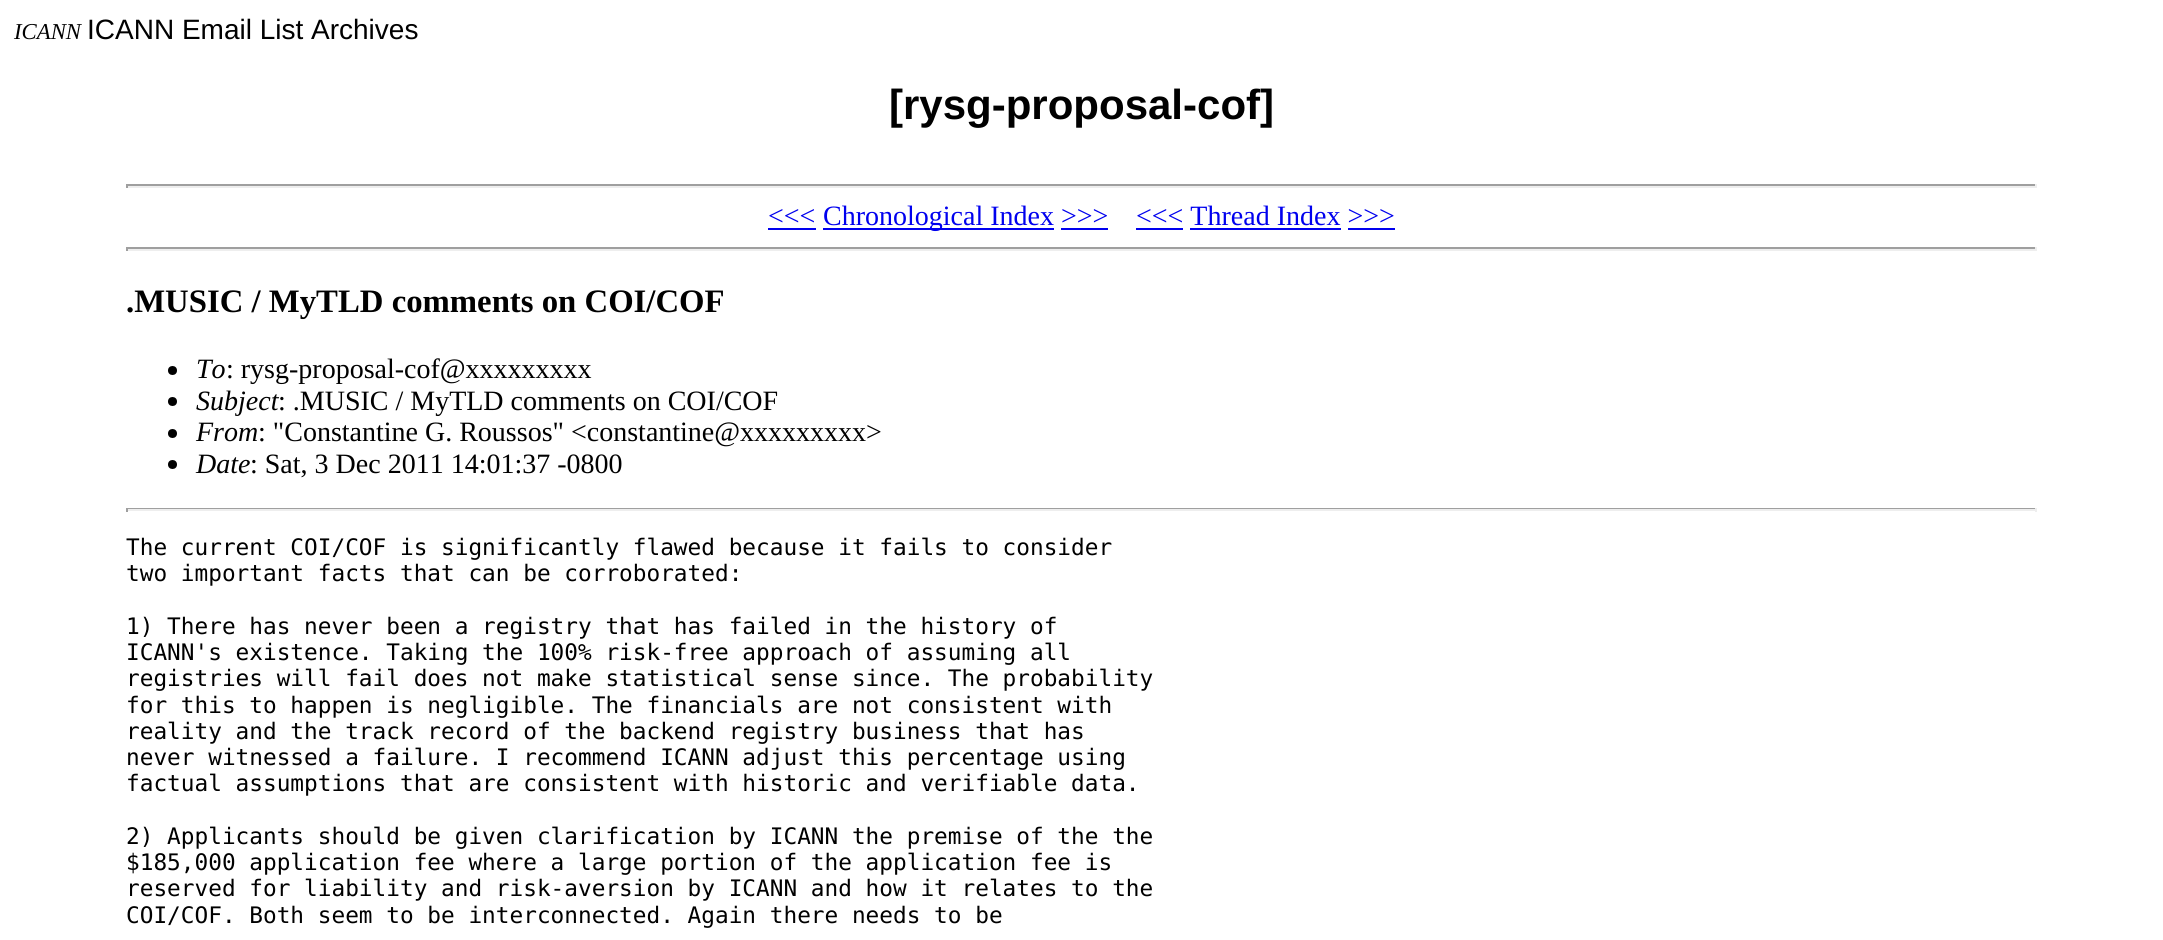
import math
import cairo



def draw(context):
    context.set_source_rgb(1, 1, 1)
    context.paint()
    context.set_source_rgb(159 / 255, 159 / 255, 159 / 255)
    context.rectangle(126, 184, 1911, 2)
    context.fill()
    context.set_source_rgb(238 / 255, 238 / 255, 238 / 255)
    context.rectangle(2035, 184, 2, 4)
    context.fill()
    context.rectangle(126, 186, 1911, 2)
    context.fill()
    context.set_source_rgb(159 / 255, 159 / 255, 159 / 255)
    context.rectangle(126, 184, 2, 4)
    context.fill()
    context.set_source_rgb(0, 0, 238 / 255)
    context.rectangle(768, 228, 48, 2)
    context.fill()
    context.rectangle(823, 228, 231, 2)
    context.fill()
    context.rectangle(1136, 228, 47, 2)
    context.fill()
    context.rectangle(1061, 228, 47, 2)
    context.fill()
    context.rectangle(1190, 228, 151, 2)
    context.fill()
    context.rectangle(1348, 228, 47, 2)
    context.fill()
    context.set_source_rgb(159 / 255, 159 / 255, 159 / 255)
    context.rectangle(126, 247, 1911, 2)
    context.fill()
    context.set_source_rgb(238 / 255, 238 / 255, 238 / 255)
    context.rectangle(2035, 247, 2, 4)
    context.fill()
    context.rectangle(126, 249, 1911, 2)
    context.fill()
    context.set_source_rgb(159 / 255, 159 / 255, 159 / 255)
    context.rectangle(126, 247, 2, 4)
    context.fill()
    context.set_source_rgb(0, 0, 0)
    context.arc(172.5, 370.5, 4.5, 0, 2 * math.pi)
    context.fill()
    context.arc(172.5, 401.5, 4.5, 0, 2 * math.pi)
    context.fill()
    context.arc(172.5, 433.5, 4.5, 0, 2 * math.pi)
    context.fill()
    context.arc(172.5, 464.5, 4.5, 0, 2 * math.pi)
    context.fill()
    context.set_source_rgb(159 / 255, 159 / 255, 159 / 255)
    context.rectangle(126, 508, 1911, 1)
    context.fill()
    context.set_source_rgb(238 / 255, 238 / 255, 238 / 255)
    context.rectangle(2035, 508, 2, 4)
    context.fill()
    context.rectangle(126, 509, 1911, 2)
    context.fill()
    context.set_source_rgb(159 / 255, 159 / 255, 159 / 255)
    context.rectangle(126, 508, 2, 4)
    context.fill()
    context.select_font_face("Liberation Serif", cairo.FontSlant.ITALIC)
    context.set_font_size(22.75)
    context.set_source_rgb(0, 0, 0)
    context.move_to(14, 39)
    context.show_text("ICANN")
    context.select_font_face("Liberation Sans")
    context.set_font_size(28)
    context.move_to(87, 39)
    context.show_text("ICANN Email List Archives")
    context.select_font_face("Liberation Sans", cairo.FontSlant.NORMAL, cairo.FontWeight.BOLD)
    context.set_font_size(42)
    context.move_to(889, 119)
    context.show_text("[rysg-proposal-cof]")
    context.select_font_face("Liberation Serif")
    context.set_font_size(28)
    context.set_source_rgb(0, 0, 238 / 255)
    context.move_to(768, 225)
    context.show_text("<<<")
    context.move_to(823, 225)
    context.show_text("Chronological Index >>>")
    context.move_to(1136, 225)
    context.show_text("<<< Thread Index >>>")
    context.select_font_face("Liberation Serif", cairo.FontSlant.NORMAL, cairo.FontWeight.BOLD)
    context.set_font_size(32.75)
    context.set_source_rgb(0, 0, 0)
    context.move_to(126, 312)
    context.show_text(".MUSIC / MyTLD comments on COI/COF")
    context.select_font_face("Liberation Serif", cairo.FontSlant.ITALIC)
    context.set_font_size(28)
    context.move_to(196, 378)
    context.show_text("To")
    context.select_font_face("Liberation Serif")
    context.move_to(226, 378)
    context.show_text(": rysg-proposal-cof@xxxxxxxxx")
    context.select_font_face("Liberation Serif", cairo.FontSlant.ITALIC)
    context.move_to(196, 410)
    context.show_text("Subject")
    context.select_font_face("Liberation Serif")
    context.move_to(278, 410)
    context.show_text(": .MUSIC / MyTLD comments on COI/COF")
    context.select_font_face("Liberation Serif", cairo.FontSlant.ITALIC)
    context.move_to(196, 441)
    context.show_text("From")
    context.select_font_face("Liberation Serif")
    context.move_to(258, 441)
    context.show_text(": \"Constantine G. Roussos\" <constantine@xxxxxxxxx>")
    context.select_font_face("Liberation Serif", cairo.FontSlant.ITALIC)
    context.move_to(196, 473)
    context.show_text("Date")
    context.select_font_face("Liberation Serif")
    context.move_to(250, 473)
    context.show_text(": Sat, 3 Dec 2011 14:01:37 -0800")
    context.select_font_face("DejaVu Sans Mono")
    context.set_font_size(22.75)
    context.move_to(126, 555)
    context.show_text("The current COI/COF is significantly flawed because it fails to consider")
    context.move_to(126, 581)
    context.show_text("two important facts that can be corroborated:")
    context.move_to(126, 634)
    context.show_text("1) There has never been a registry that has failed in the history of")
    context.move_to(126, 660)
    context.show_text("ICANN's existence. Taking the 100% risk-free approach of assuming all")
    context.move_to(126, 686)
    context.show_text("registries will fail does not make statistical sense since. The probability")
    context.move_to(126, 713)
    context.show_text("for this to happen is negligible. The financials are not consistent with")
    context.move_to(126, 739)
    context.show_text("reality and the track record of the backend registry business that has")
    context.move_to(126, 765)
    context.show_text("never witnessed a failure. I recommend ICANN adjust this percentage using")
    context.move_to(126, 791)
    context.show_text("factual assumptions that are consistent with historic and verifiable data.")
    context.move_to(126, 844)
    context.show_text("2) Applicants should be given clarification by ICANN the premise of the the")
    context.move_to(126, 870)
    context.show_text("$185,000 application fee where a large portion of the application fee is")
    context.move_to(126, 896)
    context.show_text("reserved for liability and risk-aversion by ICANN and how it relates to the")
    context.move_to(126, 923)
    context.show_text("COI/COF. Both seem to be interconnected. Again there needs to be")


surface = cairo.ImageSurface(cairo.Format.RGB24, 2163, 940)
context = cairo.Context(surface)
options = cairo.FontOptions()
options.set_hint_metrics(cairo.HintMetrics.OFF)
options.set_hint_style(cairo.HintStyle.NONE)
context.set_font_options(options)
context.set_miter_limit(4)
draw(context)
surface.write_to_png("out.png")
